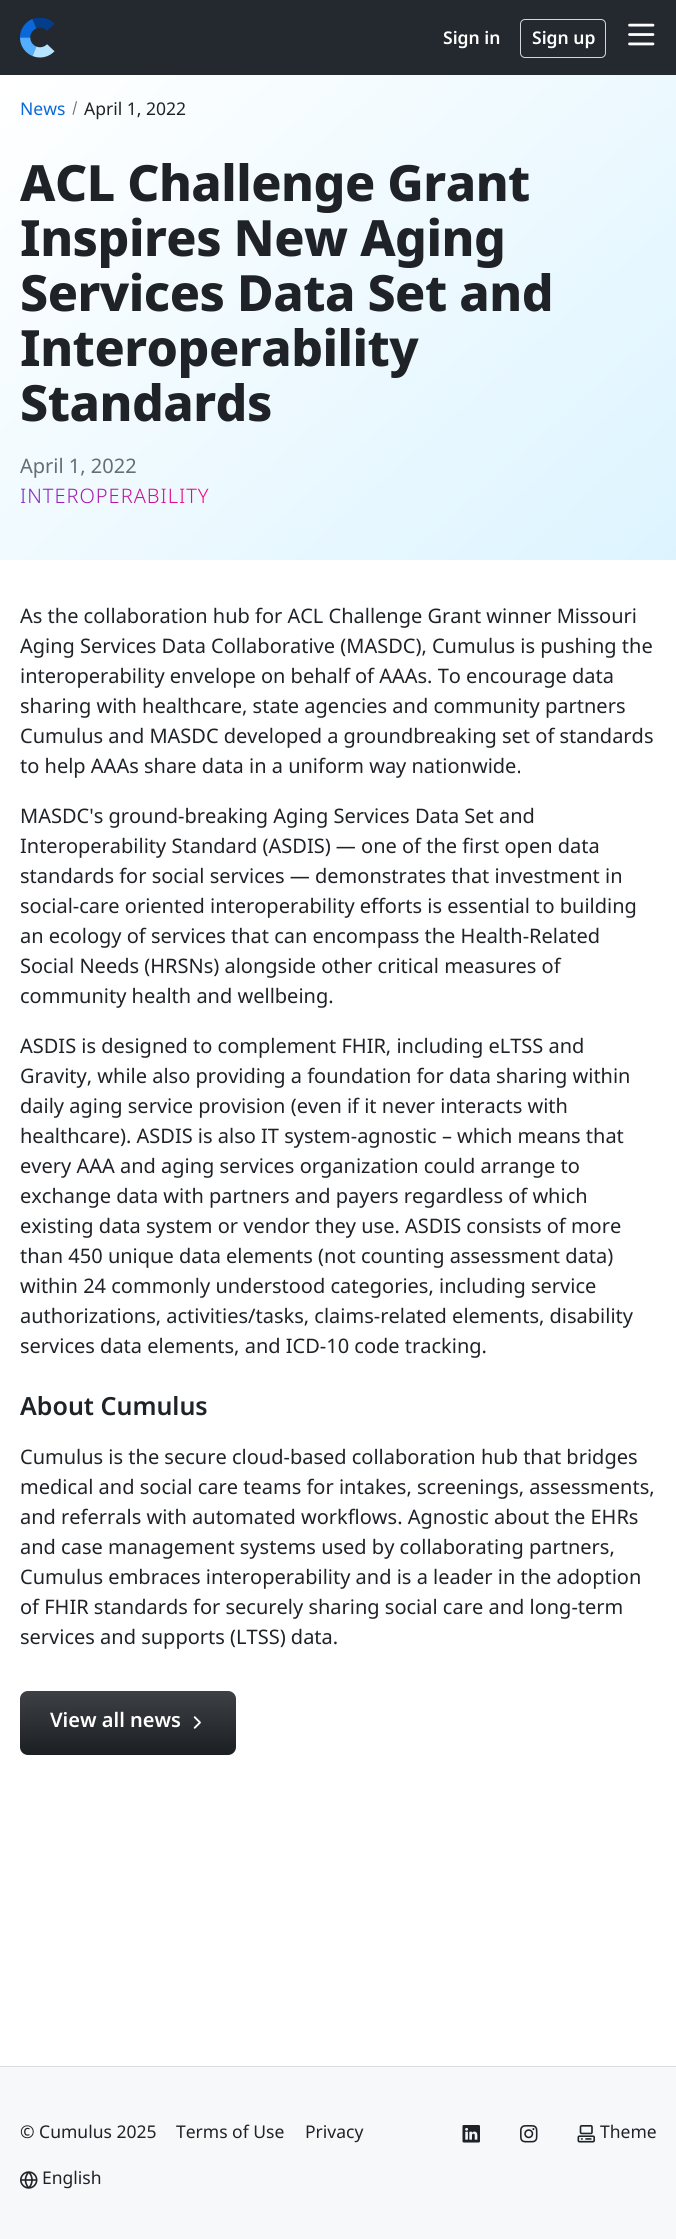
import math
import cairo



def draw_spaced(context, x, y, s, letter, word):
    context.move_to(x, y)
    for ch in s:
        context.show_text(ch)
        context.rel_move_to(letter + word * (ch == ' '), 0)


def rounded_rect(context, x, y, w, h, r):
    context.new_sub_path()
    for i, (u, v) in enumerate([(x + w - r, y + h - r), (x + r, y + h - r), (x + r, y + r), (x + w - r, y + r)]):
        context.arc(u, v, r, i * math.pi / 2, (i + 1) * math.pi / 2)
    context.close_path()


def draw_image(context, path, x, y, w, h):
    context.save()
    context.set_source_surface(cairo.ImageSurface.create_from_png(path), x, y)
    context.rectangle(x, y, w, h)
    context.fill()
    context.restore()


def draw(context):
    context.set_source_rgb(1, 1, 1)
    context.paint()
    context.set_source_rgb(36 / 255, 41 / 255, 47 / 255)
    context.rectangle(0, 0, 676, 75)
    context.fill()
    draw_image(context, "images/1.png", 20, 18, 35, 40)
    rounded_rect(context, 520.5, 19.5, 85, 38, 4.5)
    context.set_source_rgb(208 / 255, 215 / 255, 222 / 255)
    context.set_line_width(1)
    context.stroke()
    draw_image(context, "images/2.png", 628, 23, 27, 23)
    gradient = cairo.LinearGradient(66, 15, 610, 620)
    gradient.add_color_stop_rgba(0.01, 1, 1, 1, 1)
    gradient.add_color_stop_rgba(1, 221 / 255, 244 / 255, 1, 1)
    context.set_source(gradient)
    context.rectangle(0, 75, 676, 485)
    context.fill()
    context.set_source_rgb(101 / 255, 109 / 255, 118 / 255)
    context.new_path()
    context.move_to(76, 101)
    context.line_to(77, 101.5)
    context.line_to(73.5, 115)
    context.line_to(72.5, 114.5)
    context.close_path()
    context.fill()
    context.set_source_rgb(27 / 255, 31 / 255, 35 / 255)
    rounded_rect(context, 20, 1691, 216, 64, 8)
    context.fill()
    gradient = cairo.LinearGradient(128, 1691, 128, 1755)
    gradient.add_color_stop_rgba(0, 1, 1, 1, 0.15)
    gradient.add_color_stop_rgba(1, 1, 1, 1, 0)
    context.set_source(gradient)
    rounded_rect(context, 20, 1691, 216, 64, 8)
    context.fill()
    draw_image(context, "images/3.png", 193, 1716, 8, 13)
    context.set_source_rgb(246 / 255, 248 / 255, 250 / 255)
    context.rectangle(0, 2067, 676, 172)
    context.fill()
    context.set_source_rgb(216 / 255, 222 / 255, 228 / 255)
    context.rectangle(0, 2066, 676, 1)
    context.fill()
    draw_image(context, "images/4.png", 462, 2125, 18, 18)
    draw_image(context, "images/5.png", 520, 2125, 18, 18)
    draw_image(context, "images/6.png", 577, 2125, 18, 18)
    draw_image(context, "images/7.png", 20, 2171, 18, 18)
    context.select_font_face("Noto Sans SemiBold")
    context.set_font_size(17.5)
    context.set_source_rgb(1, 1, 1)
    context.move_to(443, 44)
    context.show_text("Sign in")
    context.move_to(532, 44)
    context.show_text("Sign up")
    context.select_font_face("Noto Sans")
    context.set_source_rgb(9 / 255, 105 / 255, 218 / 255)
    context.move_to(20, 115)
    context.show_text("News")
    context.set_source_rgb(31 / 255, 35 / 255, 40 / 255)
    context.move_to(84, 115)
    context.show_text("April 1, 2022")
    context.select_font_face("Noto Sans ExtraBold")
    context.set_font_size(50)
    draw_spaced(context, 20, 201, "ACL Challenge Grant", -0.5, 0)
    draw_spaced(context, 20, 256, "Inspires New Aging", -0.5, 0)
    draw_spaced(context, 20, 311, "Services Data Set and", -0.5, 0)
    draw_spaced(context, 20, 366, "Interoperability", -0.5, 0)
    draw_spaced(context, 20, 421, "Standards", -0.5, 0)
    context.select_font_face("Noto Sans")
    context.set_font_size(20)
    context.set_source_rgb(101 / 255, 109 / 255, 118 / 255)
    context.move_to(20, 473)
    context.show_text("April 1, 2022")
    context.select_font_face("Noto Sans Light")
    gradient = cairo.LinearGradient(20, 495, 210, 495)
    gradient.add_color_stop_rgba(0, 121 / 255, 40 / 255, 202 / 255, 1)
    gradient.add_color_stop_rgba(1, 1, 0, 128 / 255, 1)
    context.set_source(gradient)
    draw_spaced(context, 20, 503, "INTEROPERABILITY", 1, 0)
    context.select_font_face("Noto Sans")
    context.set_source_rgb(31 / 255, 35 / 255, 40 / 255)
    context.move_to(20, 623)
    context.show_text("As the collaboration hub for ACL Challenge Grant winner Missouri")
    context.move_to(20, 653)
    context.show_text("Aging Services Data Collaborative (MASDC), Cumulus is pushing the")
    context.move_to(20, 683)
    context.show_text("interoperability envelope on behalf of AAAs. To encourage data")
    context.move_to(20, 713)
    context.show_text("sharing with healthcare, state agencies and community partners")
    context.move_to(20, 743)
    context.show_text("Cumulus and MASDC developed a groundbreaking set of standards")
    context.move_to(20, 773)
    context.show_text("to help AAAs share data in a uniform way nationwide.")
    context.move_to(20, 823)
    context.show_text("MASDC's ground-breaking Aging Services Data Set and")
    context.move_to(20, 853)
    context.show_text("Interoperability Standard (ASDIS) — one of the first open data")
    context.move_to(20, 883)
    context.show_text("standards for social services — demonstrates that investment in")
    context.move_to(20, 913)
    context.show_text("social-care oriented interoperability efforts is essential to building")
    context.move_to(20, 943)
    context.show_text("an ecology of services that can encompass the Health-Related")
    context.move_to(20, 973)
    context.show_text("Social Needs (HRSNs) alongside other critical measures of")
    context.move_to(20, 1003)
    context.show_text("community health and wellbeing.")
    context.move_to(20, 1053)
    context.show_text("ASDIS is designed to complement FHIR, including eLTSS and")
    context.move_to(20, 1083)
    context.show_text("Gravity, while also providing a foundation for data sharing within")
    context.move_to(20, 1113)
    context.show_text("daily aging service provision (even if it never interacts with")
    context.move_to(20, 1143)
    context.show_text("healthcare). ASDIS is also IT system-agnostic – which means that")
    context.move_to(20, 1173)
    context.show_text("every AAA and aging services organization could arrange to")
    context.move_to(20, 1203)
    context.show_text("exchange data with partners and payers regardless of which")
    context.move_to(20, 1233)
    context.show_text("existing data system or vendor they use. ASDIS consists of more")
    context.move_to(20, 1263)
    context.show_text("than 450 unique data elements (not counting assessment data)")
    context.move_to(20, 1293)
    context.show_text("within 24 commonly understood categories, including service")
    context.move_to(20, 1323)
    context.show_text("authorizations, activities/tasks, claims-related elements, disability")
    context.move_to(20, 1353)
    context.show_text("services data elements, and ICD-10 code tracking.")
    context.select_font_face("Noto Sans SemiBold")
    context.set_font_size(25)
    context.move_to(20, 1415)
    context.show_text("About Cumulus")
    context.select_font_face("Noto Sans")
    context.set_font_size(20)
    context.move_to(20, 1464)
    context.show_text("Cumulus is the secure cloud-based collaboration hub that bridges")
    context.move_to(20, 1494)
    context.show_text("medical and social care teams for intakes, screenings, assessments,")
    context.move_to(20, 1524)
    context.show_text("and referrals with automated workflows. Agnostic about the EHRs")
    context.move_to(20, 1554)
    context.show_text("and case management systems used by collaborating partners,")
    context.move_to(20, 1584)
    context.show_text("Cumulus embraces interoperability and is a leader in the adoption")
    context.move_to(20, 1614)
    context.show_text("of FHIR standards for securely sharing social care and long-term")
    context.move_to(20, 1644)
    context.show_text("services and supports (LTSS) data.")
    context.select_font_face("Noto Sans SemiBold")
    context.set_source_rgb(1, 1, 1)
    context.move_to(50, 1727)
    context.show_text("View all news")
    context.select_font_face("Noto Sans")
    context.set_font_size(17.5)
    context.set_source_rgb(31 / 255, 35 / 255, 40 / 255)
    context.move_to(20, 2138)
    context.show_text("© Cumulus 2025")
    context.move_to(176, 2138)
    context.show_text("Terms of Use")
    context.move_to(305, 2138)
    context.show_text("Privacy")
    context.move_to(600, 2138)
    context.show_text("Theme")
    context.move_to(42, 2184)
    context.show_text("English")


surface = cairo.ImageSurface(cairo.Format.RGB24, 676, 2239)
context = cairo.Context(surface)
options = cairo.FontOptions()
options.set_hint_metrics(cairo.HintMetrics.OFF)
options.set_hint_style(cairo.HintStyle.NONE)
context.set_font_options(options)
context.set_miter_limit(4)
draw(context)
surface.write_to_png("out.png")
